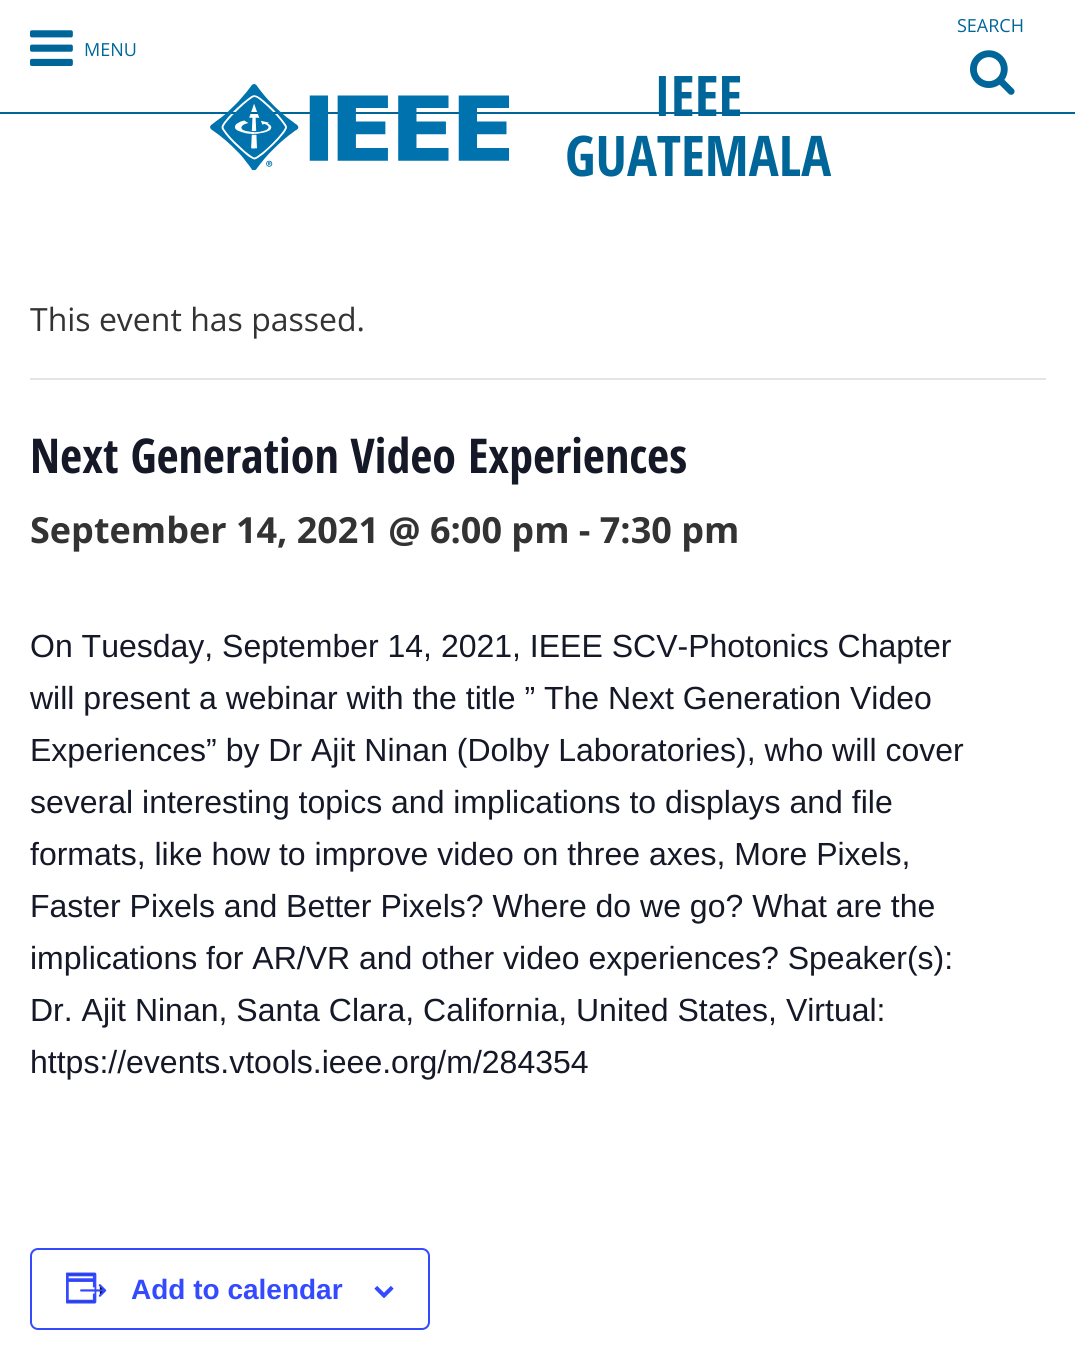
import math
import cairo



def rounded_rect(context, x, y, w, h, r):
    context.new_sub_path()
    for i, (u, v) in enumerate([(x + w - r, y + h - r), (x + r, y + h - r), (x + r, y + r), (x + w - r, y + r)]):
        context.arc(u, v, r, i * math.pi / 2, (i + 1) * math.pi / 2)
    context.close_path()


def draw_image(context, path, x, y, w, h):
    context.save()
    context.set_source_surface(cairo.ImageSurface.create_from_png(path), x, y)
    context.rectangle(x, y, w, h)
    context.fill()
    context.restore()


def draw(context):
    context.set_source_rgb(1, 1, 1)
    context.paint()
    context.set_source_rgb(0, 102 / 255, 153 / 255)
    context.rectangle(0, 112, 1075, 2)
    context.fill()
    draw_image(context, "images/1.png", 970, 50, 45, 45)
    draw_image(context, "images/2.png", 30, 30, 43, 36)
    draw_image(context, "images/3.png", 210, 84, 299, 87)
    context.set_source_rgb(228 / 255, 228 / 255, 228 / 255)
    context.rectangle(30, 378, 1016, 2)
    context.fill()
    rounded_rect(context, 31, 1249, 398, 80, 7)
    context.set_source_rgb(51 / 255, 74 / 255, 1)
    context.stroke()
    draw_image(context, "images/4.png", 66, 1272, 41, 32)
    draw_image(context, "images/5.png", 374, 1286, 20, 12)
    context.select_font_face("Open Sans")
    context.set_font_size(18)
    context.set_source_rgb(0, 102 / 255, 153 / 255)
    context.move_to(957, 32)
    context.show_text("SEARCH")
    context.move_to(84, 56)
    context.show_text("MENU")
    context.select_font_face("Open Sans Condensed", cairo.FontSlant.NORMAL, cairo.FontWeight.BOLD)
    context.set_font_size(56)
    context.move_to(654, 116)
    context.show_text("IEEE")
    context.move_to(565, 176)
    context.show_text("GUATEMALA")
    context.select_font_face("Open Sans")
    context.set_font_size(32)
    context.set_source_rgb(51 / 255, 51 / 255, 51 / 255)
    context.move_to(30, 331)
    context.show_text("This event has passed.")
    context.select_font_face("Open Sans Condensed", cairo.FontSlant.NORMAL, cairo.FontWeight.BOLD)
    context.set_font_size(48)
    context.set_source_rgb(20 / 255, 24 / 255, 39 / 255)
    context.move_to(30, 473)
    context.show_text("Next Generation Video Experiences")
    context.select_font_face("Open Sans", cairo.FontSlant.NORMAL, cairo.FontWeight.BOLD)
    context.set_font_size(36)
    context.set_source_rgb(51 / 255, 51 / 255, 51 / 255)
    context.move_to(30, 543)
    context.show_text("September 14, 2021 @ 6:00 pm - 7:30 pm")
    context.select_font_face("Liberation Sans")
    context.set_font_size(32)
    context.set_source_rgb(20 / 255, 24 / 255, 39 / 255)
    context.move_to(30, 657)
    context.show_text("On Tuesday, September 14, 2021, IEEE SCV-Photonics Chapter")
    context.move_to(30, 709)
    context.show_text("will present a webinar with the title ” The Next Generation Video")
    context.move_to(30, 761)
    context.show_text("Experiences” by Dr Ajit Ninan (Dolby Laboratories), who will cover")
    context.move_to(30, 813)
    context.show_text("several interesting topics and implications to displays and file")
    context.move_to(30, 865)
    context.show_text("formats, like how to improve video on three axes, More Pixels,")
    context.move_to(30, 917)
    context.show_text("Faster Pixels and Better Pixels? Where do we go? What are the")
    context.move_to(30, 969)
    context.show_text("implications for AR/VR and other video experiences? Speaker(s):")
    context.move_to(30, 1021)
    context.show_text("Dr. Ajit Ninan, Santa Clara, California, United States, Virtual:")
    context.move_to(30, 1073)
    context.show_text("https://events.vtools.ieee.org/m/284354")
    context.select_font_face("Liberation Sans", cairo.FontSlant.NORMAL, cairo.FontWeight.BOLD)
    context.set_font_size(28)
    context.set_source_rgb(51 / 255, 74 / 255, 1)
    context.move_to(131, 1299)
    context.show_text("Add to calendar")


surface = cairo.ImageSurface(cairo.Format.RGB24, 1075, 1356)
context = cairo.Context(surface)
options = cairo.FontOptions()
options.set_hint_metrics(cairo.HintMetrics.OFF)
options.set_hint_style(cairo.HintStyle.NONE)
context.set_font_options(options)
context.set_miter_limit(4)
draw(context)
surface.write_to_png("out.png")
